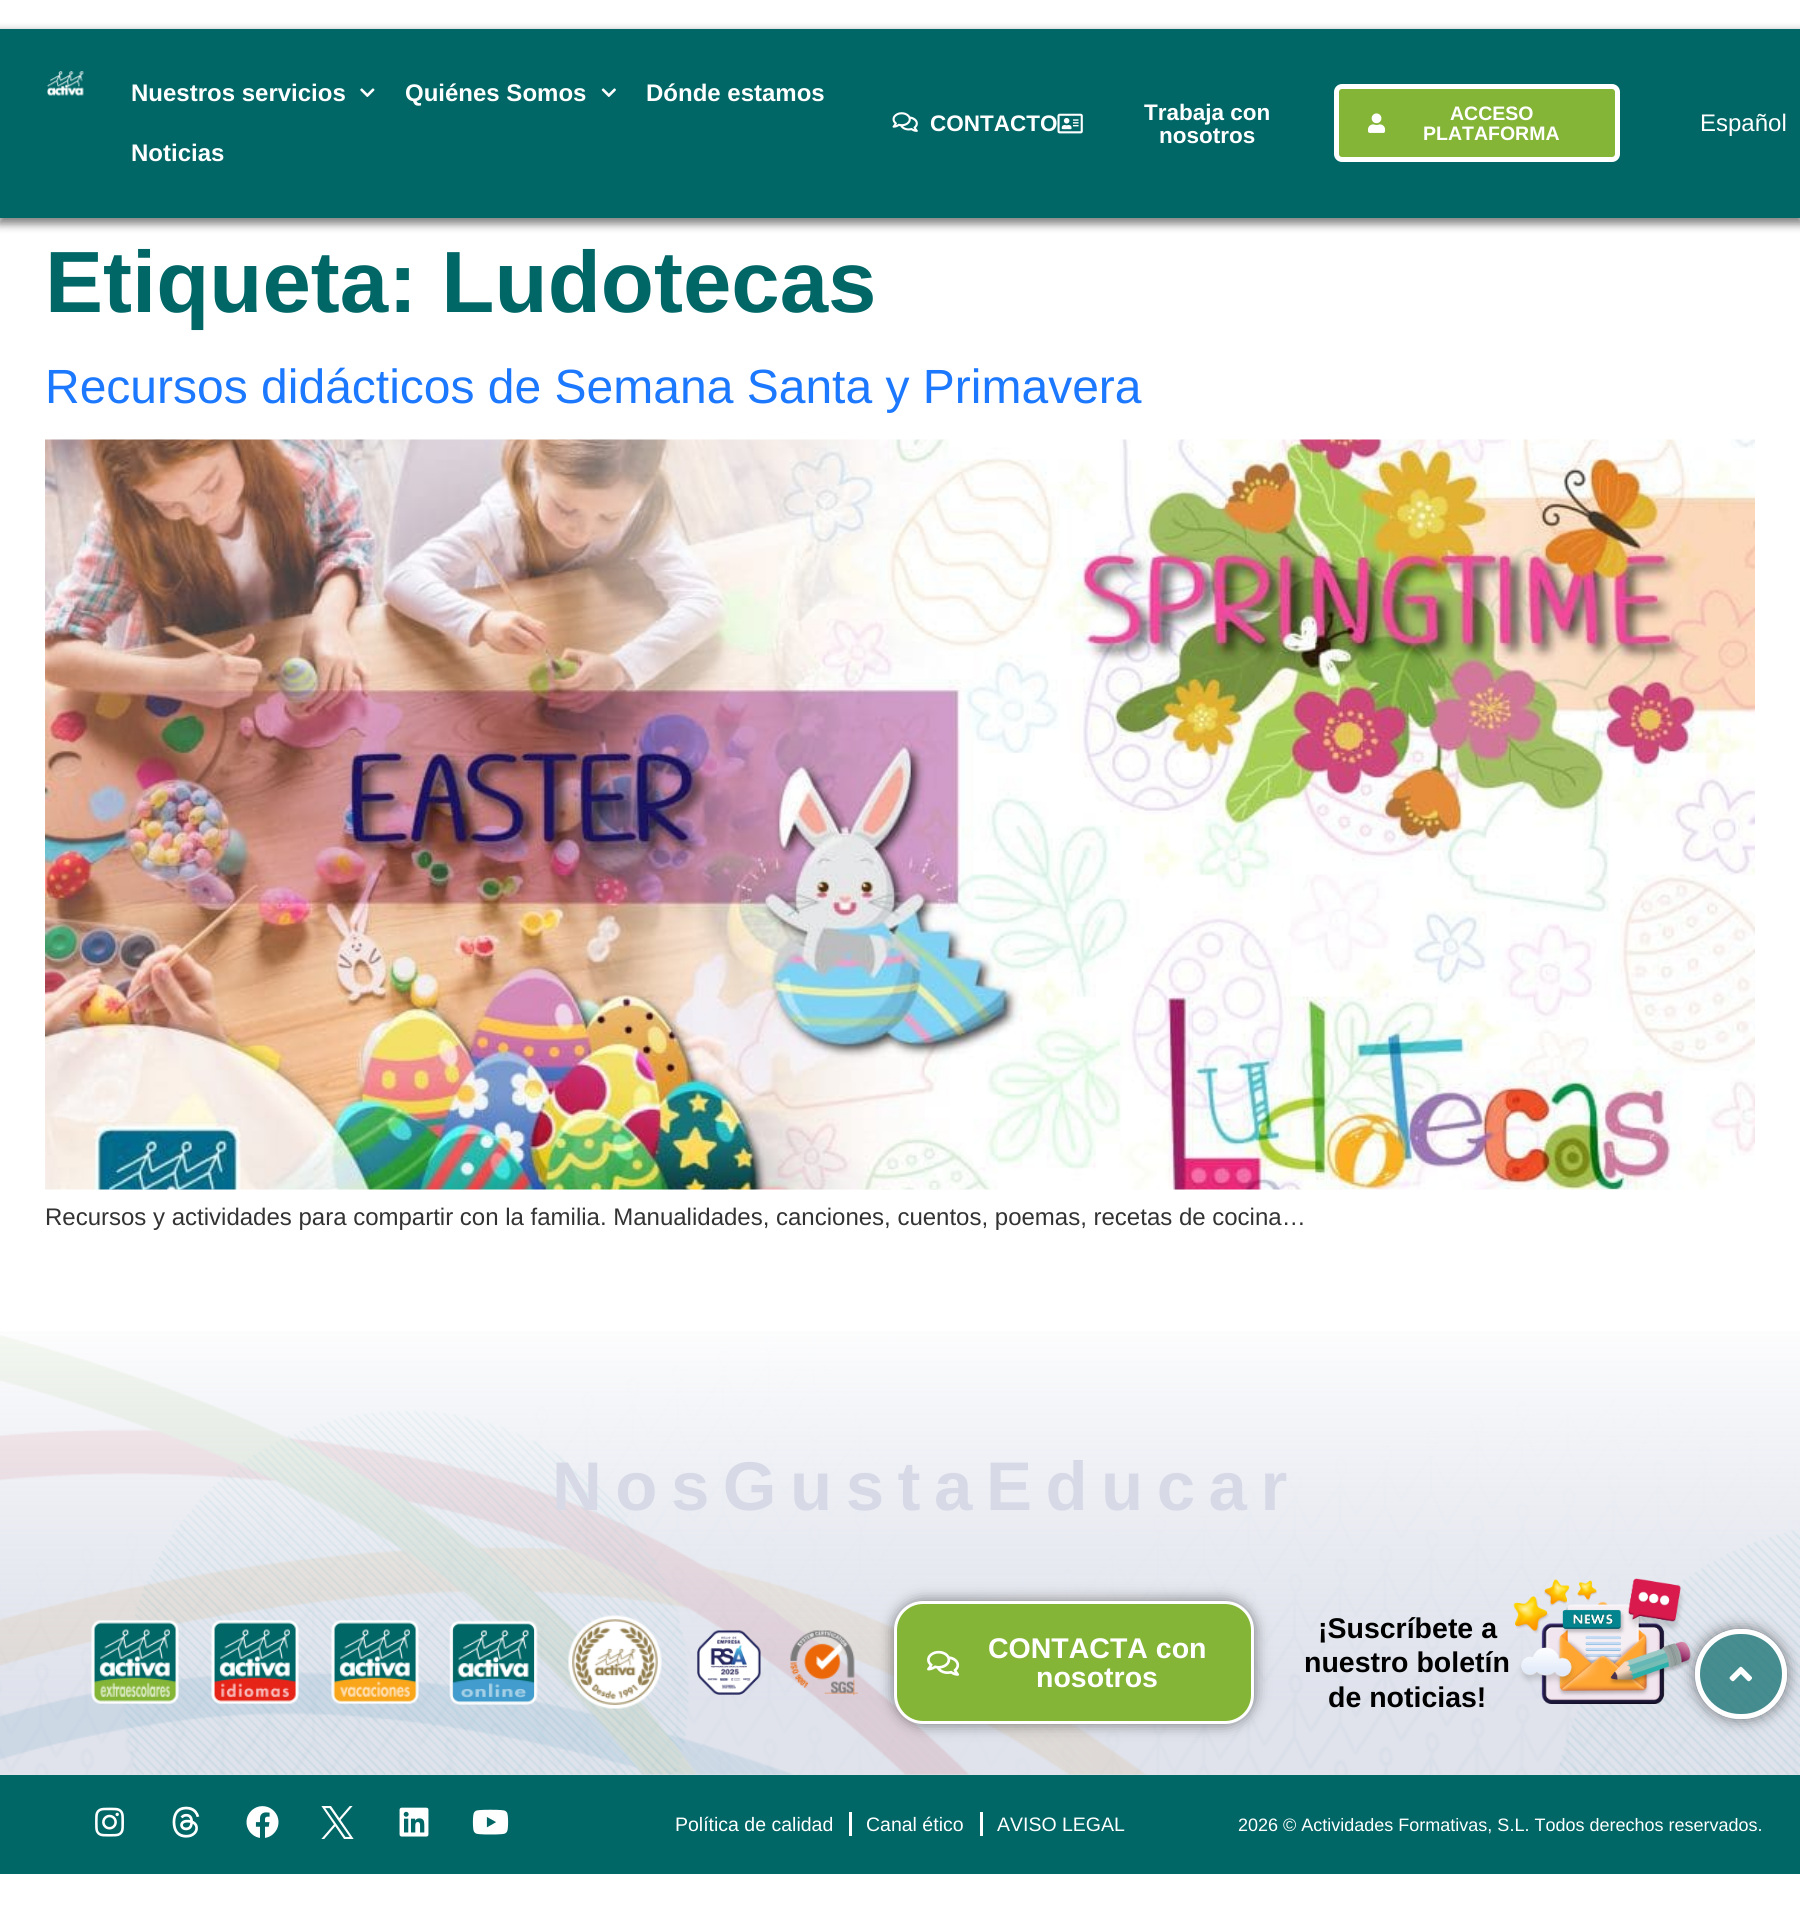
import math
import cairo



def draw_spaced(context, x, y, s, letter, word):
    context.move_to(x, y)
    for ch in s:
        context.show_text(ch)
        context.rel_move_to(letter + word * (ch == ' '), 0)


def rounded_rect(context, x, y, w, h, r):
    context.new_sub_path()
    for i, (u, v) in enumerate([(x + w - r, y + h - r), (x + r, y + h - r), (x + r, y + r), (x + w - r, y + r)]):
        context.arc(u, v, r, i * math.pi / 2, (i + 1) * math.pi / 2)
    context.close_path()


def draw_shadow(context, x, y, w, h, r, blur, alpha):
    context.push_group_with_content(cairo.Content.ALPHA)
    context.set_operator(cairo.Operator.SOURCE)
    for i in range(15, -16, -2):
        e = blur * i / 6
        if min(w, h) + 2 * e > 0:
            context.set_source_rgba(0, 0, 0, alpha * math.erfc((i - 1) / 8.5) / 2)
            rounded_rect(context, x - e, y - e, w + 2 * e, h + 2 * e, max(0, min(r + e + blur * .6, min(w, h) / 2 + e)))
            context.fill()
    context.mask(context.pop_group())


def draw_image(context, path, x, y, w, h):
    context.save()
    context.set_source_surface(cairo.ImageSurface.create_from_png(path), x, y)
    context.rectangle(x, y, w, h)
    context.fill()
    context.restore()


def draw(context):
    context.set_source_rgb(1, 1, 1)
    context.paint()
    context.set_source_rgb(0, 0, 0)
    draw_shadow(context, -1, 32, 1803, 192, 0, 4.5, 0.5)
    context.set_source_rgb(0, 102 / 255, 102 / 255)
    context.rectangle(0, 29, 1800, 189)
    context.fill()
    draw_image(context, "images/1.png", 47, 71, 37, 25)
    draw_image(context, "images/2.png", 360, 88, 15, 9)
    draw_image(context, "images/3.png", 601, 88, 15, 9)
    draw_image(context, "images/4.png", 892, 112, 26, 20)
    draw_image(context, "images/5.png", 1057, 113, 26, 21)
    context.set_source_rgb(133 / 255, 181 / 255, 55 / 255)
    rounded_rect(context, 1336.5, 86.5, 281, 73, 5.5)
    context.fill_preserve()
    context.set_source_rgb(1, 1, 1)
    context.set_line_width(5)
    context.stroke()
    draw_image(context, "images/6.png", 1368, 113, 18, 20)
    draw_image(context, "images/9.png", 0, 1335, 1800, 440)
    gradient = cairo.LinearGradient(900, 1309, 900, 1775)
    gradient.add_color_stop_rgba(0, 1, 1, 1, 0.69)
    gradient.add_color_stop_rgba(0.84, 189 / 255, 195 / 255, 215 / 255, 0.48)
    context.set_source(gradient)
    context.rectangle(0, 1331, 1800, 444)
    context.fill()
    draw_image(context, "images/18.png", 1513, 1578, 179, 126)
    context.save()
    context.set_fill_rule(cairo.FillRule.EVEN_ODD)
    context.new_path()
    context.move_to(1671, 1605)
    context.line_to(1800, 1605)
    context.line_to(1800, 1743)
    context.line_to(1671, 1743)
    context.close_path()
    context.move_to(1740, 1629)
    context.line_to(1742, 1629)
    context.curve_to(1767, 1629, 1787, 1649, 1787, 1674)
    context.curve_to(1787, 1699, 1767, 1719, 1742, 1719)
    context.line_to(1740, 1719)
    context.curve_to(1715, 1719, 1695, 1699, 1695, 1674)
    context.curve_to(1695, 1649, 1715, 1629, 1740, 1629)
    context.close_path()
    context.clip()
    context.set_source_rgb(0, 0, 0)
    draw_shadow(context, 1695, 1629, 92, 90, 45, 7.5, 0.5)
    context.restore()
    context.set_source_rgba(0, 102 / 255, 102 / 255, 0.68)
    rounded_rect(context, 1697.5, 1631.5, 87, 85, 42.5)
    context.fill_preserve()
    context.set_source_rgb(1, 1, 1)
    context.stroke()
    draw_image(context, "images/7.png", 1729, 1666, 23, 16)
    draw_image(context, "images/8.png", 45, 439, 1710, 751)
    draw_image(context, "images/10.png", 91, 1620, 88, 84)
    draw_image(context, "images/11.png", 211, 1620, 88, 84)
    draw_image(context, "images/12.png", 331, 1620, 88, 84)
    draw_image(context, "images/13.png", 449, 1620, 89, 85)
    draw_image(context, "images/14.png", 568, 1615, 94, 94)
    draw_image(context, "images/15.png", 697, 1630, 64, 65)
    draw_image(context, "images/16.png", 790, 1630, 68, 65)
    gradient = cairo.RadialGradient(0, 0, 0, 0, 0, 1)
    gradient.set_matrix(cairo.Matrix(1 / 284, 0, 0, 1 / 117, -1 * 1074 / 284, -1 * 1662 / 117))
    gradient.add_color_stop_rgba(0.41, 1, 1, 1, 0.34)
    gradient.add_color_stop_rgba(0.67, 1, 1, 1, 0)
    context.set_source(gradient)
    context.rectangle(898, 1592, 349, 143)
    context.fill()
    context.set_source_rgb(0, 0, 0)
    draw_shadow(context, 894, 1601, 360, 123, 29, 7.5, 0.5)
    context.set_source_rgb(133 / 255, 181 / 255, 55 / 255)
    rounded_rect(context, 895.5, 1602.5, 357, 120, 27.5)
    context.fill_preserve()
    context.set_source_rgb(1, 1, 1)
    context.set_line_width(3)
    context.stroke()
    draw_image(context, "images/17.png", 927, 1650, 33, 26)
    context.set_source_rgb(0, 102 / 255, 102 / 255)
    context.rectangle(0, 1775, 1800, 99)
    context.fill()
    draw_image(context, "images/19.png", 95, 1807, 29, 30)
    draw_image(context, "images/20.png", 172, 1806, 28, 32)
    draw_image(context, "images/21.png", 246, 1806, 33, 32)
    draw_image(context, "images/22.png", 321, 1806, 33, 33)
    draw_image(context, "images/23.png", 399, 1807, 30, 30)
    draw_image(context, "images/24.png", 472, 1809, 37, 26)
    context.set_source_rgb(1, 1, 1)
    context.rectangle(849, 1812, 3, 24)
    context.fill()
    context.rectangle(980, 1812, 3, 24)
    context.fill()
    context.select_font_face("Liberation Sans", cairo.FontSlant.NORMAL, cairo.FontWeight.BOLD)
    context.set_font_size(24)
    context.move_to(131, 101)
    context.show_text("Nuestros servicios")
    context.move_to(405, 101)
    context.show_text("Quiénes Somos")
    context.move_to(646, 101)
    context.show_text("Dónde estamos")
    context.move_to(131, 161)
    context.show_text("Noticias")
    context.set_font_size(22.5)
    context.move_to(930, 131)
    context.show_text("CONTACTO")
    context.move_to(1144, 120)
    context.show_text("Trabaja con")
    context.move_to(1159, 143)
    context.show_text("nosotros")
    context.set_font_size(19.5)
    context.move_to(1450, 120)
    context.show_text("ACCESO")
    context.move_to(1423, 140)
    context.show_text("PLATAFORMA")
    context.select_font_face("Liberation Sans")
    context.set_font_size(24)
    context.move_to(1700, 131)
    context.show_text("Español")
    context.select_font_face("Liberation Sans", cairo.FontSlant.NORMAL, cairo.FontWeight.BOLD)
    context.set_font_size(87)
    context.set_source_rgb(0, 102 / 255, 102 / 255)
    context.move_to(45, 312)
    context.show_text("Etiqueta: Ludotecas")
    context.select_font_face("Liberation Sans")
    context.set_font_size(48)
    context.set_source_rgb(27 / 255, 120 / 255, 1)
    context.move_to(45, 403)
    context.show_text("Recursos didácticos de Semana Santa y Primavera")
    context.set_font_size(24)
    context.set_source_rgb(51 / 255, 51 / 255, 51 / 255)
    context.move_to(45, 1225)
    context.show_text("Recursos y actividades para compartir con la familia. Manualidades, canciones, cuentos, poemas, recetas de cocina…")
    context.select_font_face("Liberation Sans", cairo.FontSlant.NORMAL, cairo.FontWeight.BOLD)
    context.set_font_size(69)
    context.set_source_rgb(215 / 255, 218 / 255, 230 / 255)
    draw_spaced(context, 552, 1510, "NosGustaEducar", 13.5, 0)
    context.set_font_size(28.5)
    context.set_source_rgb(1, 1, 1)
    context.move_to(988, 1658)
    context.show_text("CONTACTA con")
    context.move_to(1036, 1687)
    context.show_text("nosotros")
    context.set_source_rgb(0, 0, 0)
    context.move_to(1318, 1638)
    context.show_text("¡Suscríbete a")
    context.move_to(1304, 1672)
    context.show_text("nuestro boletín")
    context.move_to(1328, 1707)
    context.show_text("de noticias!")
    context.select_font_face("Liberation Sans")
    context.set_font_size(19.5)
    context.set_source_rgb(1, 1, 1)
    context.move_to(675, 1831)
    context.show_text("Política de calidad")
    context.move_to(866, 1831)
    context.show_text("Canal ético")
    context.move_to(997, 1831)
    context.show_text("AVISO LEGAL")
    context.set_font_size(18)
    context.move_to(1238, 1831)
    context.show_text("2026 © Actividades Formativas, S.L. Todos derechos reservados.")


surface = cairo.ImageSurface(cairo.Format.RGB24, 1800, 1911)
context = cairo.Context(surface)
options = cairo.FontOptions()
options.set_hint_metrics(cairo.HintMetrics.OFF)
options.set_hint_style(cairo.HintStyle.NONE)
context.set_font_options(options)
context.set_miter_limit(4)
draw(context)
surface.write_to_png("out.png")
